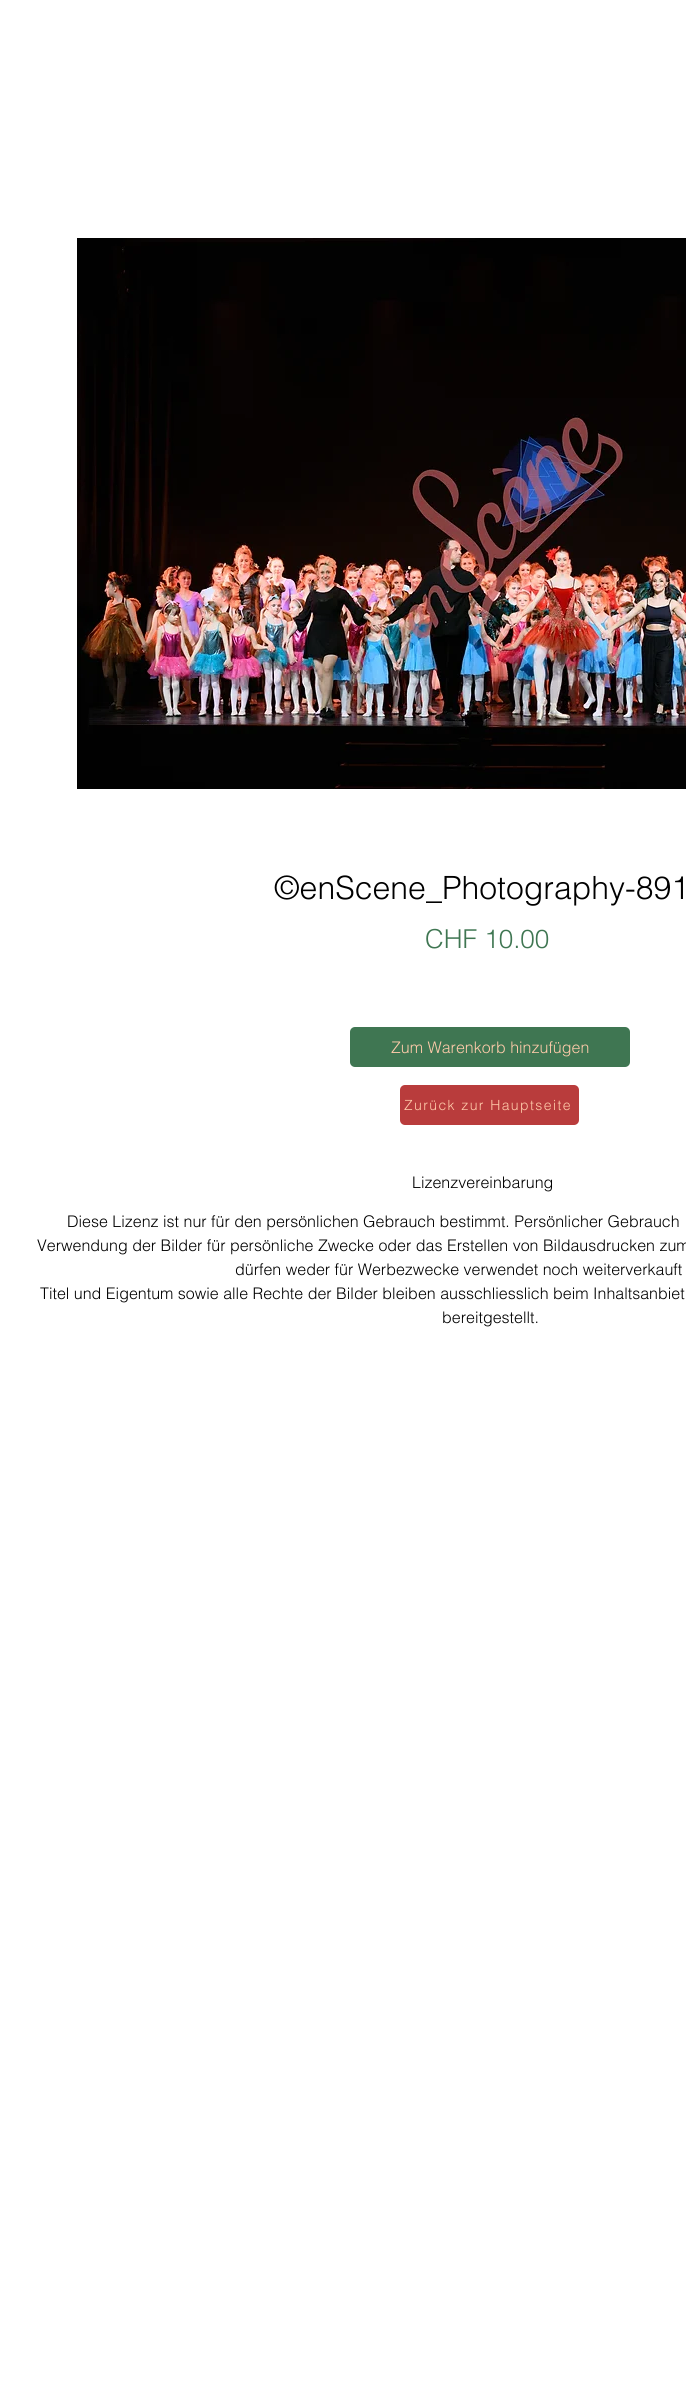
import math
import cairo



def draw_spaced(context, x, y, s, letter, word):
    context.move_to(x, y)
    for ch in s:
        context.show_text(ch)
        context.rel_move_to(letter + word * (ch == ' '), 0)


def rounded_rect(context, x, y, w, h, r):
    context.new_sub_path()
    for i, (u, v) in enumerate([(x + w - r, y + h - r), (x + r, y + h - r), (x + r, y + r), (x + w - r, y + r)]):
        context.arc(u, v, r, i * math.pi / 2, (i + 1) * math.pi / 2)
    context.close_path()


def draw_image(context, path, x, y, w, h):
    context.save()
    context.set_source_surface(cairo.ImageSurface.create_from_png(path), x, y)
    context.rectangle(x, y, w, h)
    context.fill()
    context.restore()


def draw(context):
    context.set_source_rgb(1, 1, 1)
    context.paint()
    draw_image(context, "images/1.png", 77, 238, 609, 551)
    context.set_source_rgb(63 / 255, 118 / 255, 82 / 255)
    rounded_rect(context, 350, 1027, 280, 40, 5)
    context.fill()
    context.set_source_rgb(185 / 255, 60 / 255, 60 / 255)
    rounded_rect(context, 400, 1085, 179, 40, 5)
    context.fill()
    context.select_font_face("helvetica Light")
    context.set_font_size(32)
    context.set_source_rgb(0, 0, 0)
    context.move_to(274, 899)
    context.show_text("©enScene_Photography-891")
    context.set_font_size(26)
    context.set_source_rgb(63 / 255, 118 / 255, 82 / 255)
    context.move_to(425, 948)
    context.show_text("CHF 10.00")
    context.set_font_size(16)
    context.set_source_rgb(1, 203 / 255, 170 / 255)
    context.move_to(391, 1053)
    context.show_text("Zum Warenkorb hinzufügen")
    context.set_source_rgb(0, 0, 0)
    context.move_to(412, 1188)
    context.show_text("Lizenzvereinbarung")
    context.move_to(67, 1227)
    context.show_text("Diese Lizenz ist nur für den persönlichen Gebrauch bestimmt. Persönlicher Gebrauch")
    context.move_to(37, 1251)
    context.show_text("Verwendung der Bilder für persönliche Zwecke oder das Erstellen von Bildausdrucken zum")
    context.move_to(235, 1275)
    context.show_text("dürfen weder für Werbezwecke verwendet noch weiterverkauft")
    context.move_to(40, 1299)
    context.show_text("Titel und Eigentum sowie alle Rechte der Bilder bleiben ausschliesslich beim Inhaltsanbiet")
    context.move_to(442, 1323)
    context.show_text("bereitgestellt.")
    context.set_font_size(14)
    context.set_source_rgb(1, 203 / 255, 170 / 255)
    draw_spaced(context, 404, 1110, "Zurück zur Hauptseite", 1.4, 0)


surface = cairo.ImageSurface(cairo.Format.RGB24, 686, 2382)
context = cairo.Context(surface)
options = cairo.FontOptions()
options.set_hint_metrics(cairo.HintMetrics.OFF)
options.set_hint_style(cairo.HintStyle.NONE)
context.set_font_options(options)
context.set_miter_limit(4)
draw(context)
surface.write_to_png("out.png")
